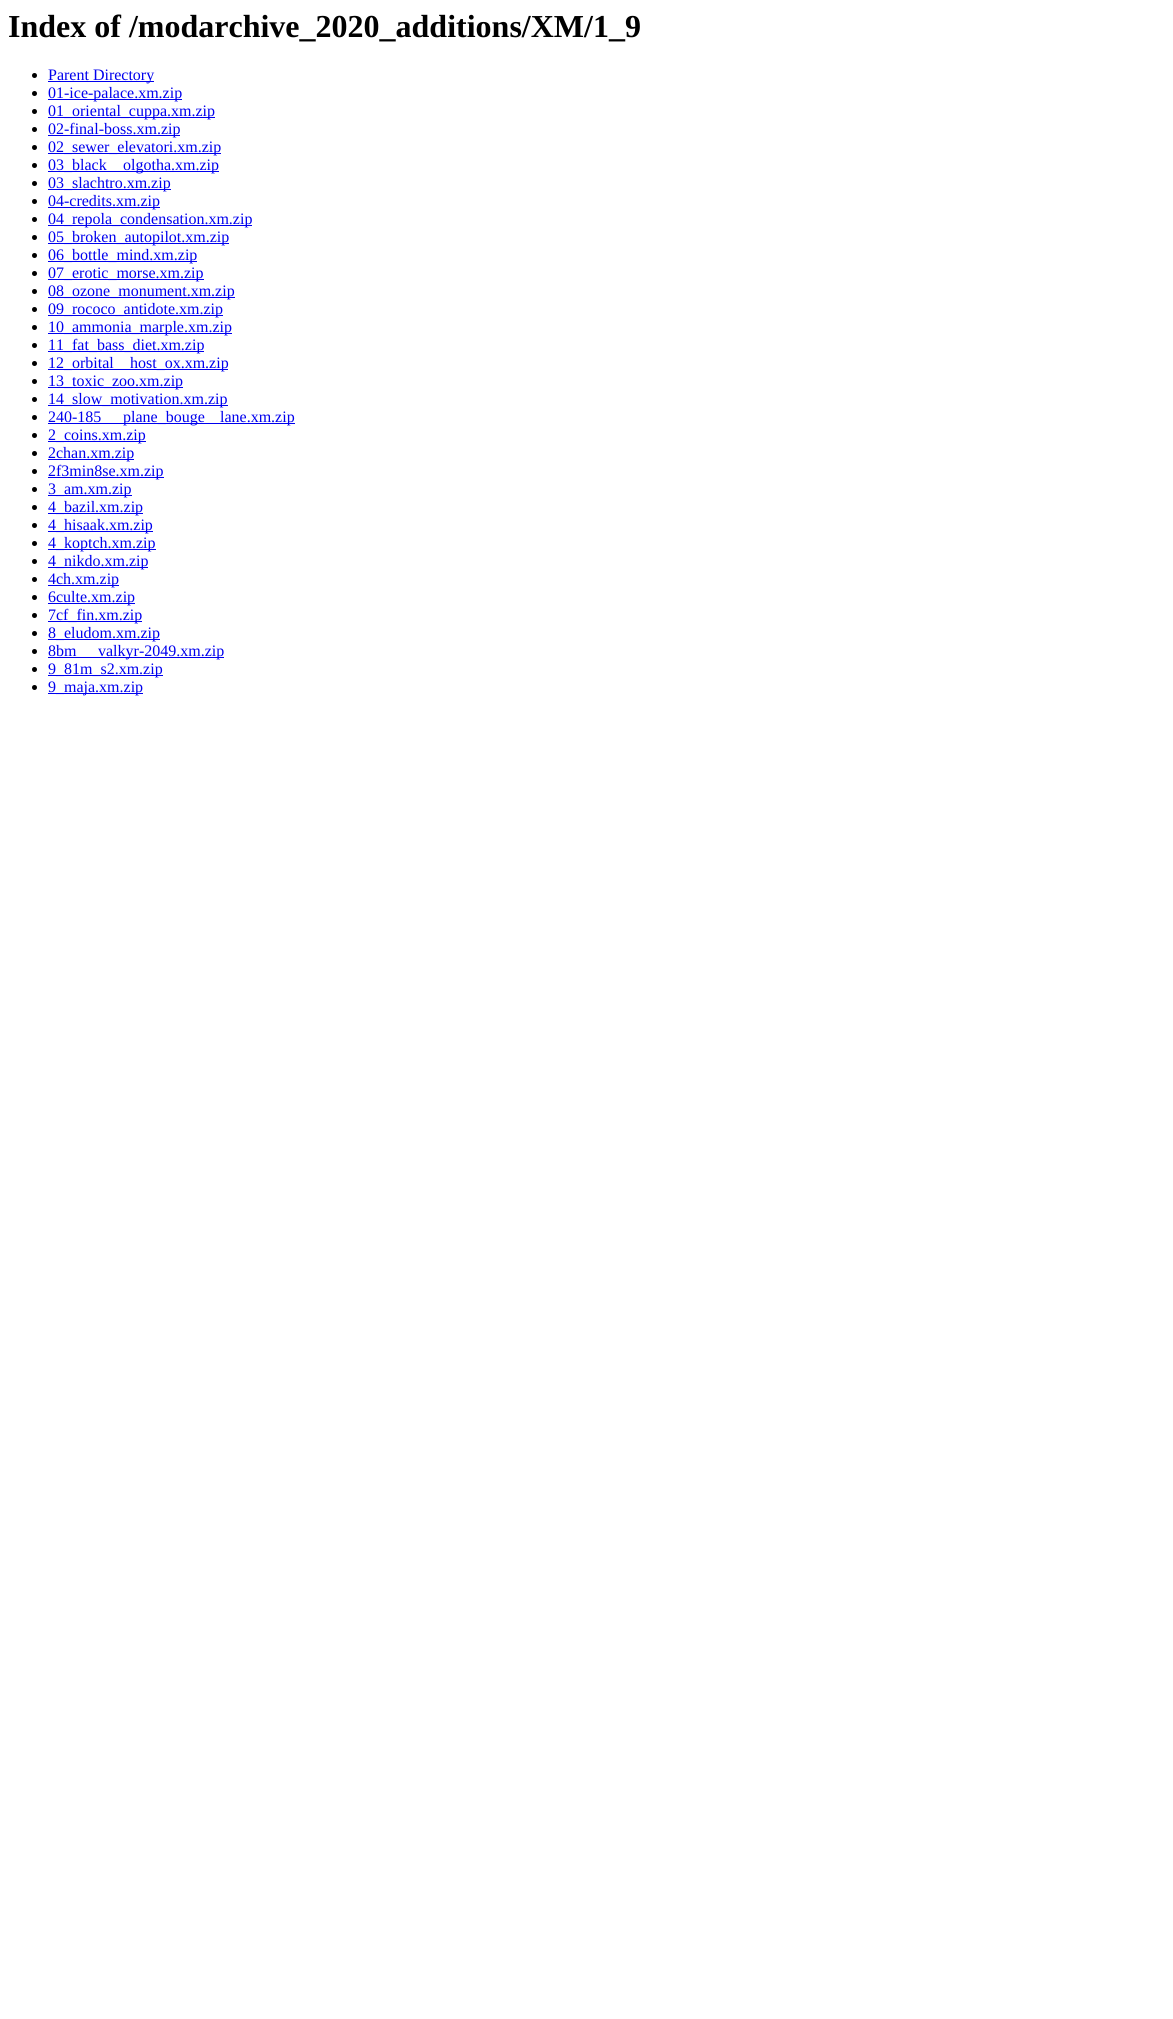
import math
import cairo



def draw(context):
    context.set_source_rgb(1, 1, 1)
    context.paint()
    context.set_source_rgb(0, 0, 0)
    context.arc(34.5, 75.5, 2.5, 0, 2 * math.pi)
    context.fill()
    context.set_source_rgb(0, 0, 238 / 255)
    context.rectangle(48, 81, 106, 1)
    context.fill()
    context.set_source_rgb(0, 0, 0)
    context.arc(34.5, 93.5, 2.5, 0, 2 * math.pi)
    context.fill()
    context.set_source_rgb(0, 0, 238 / 255)
    context.rectangle(48, 99, 134, 1)
    context.fill()
    context.set_source_rgb(0, 0, 0)
    context.arc(34.5, 111.5, 2.5, 0, 2 * math.pi)
    context.fill()
    context.set_source_rgb(0, 0, 238 / 255)
    context.rectangle(48, 117, 167, 1)
    context.fill()
    context.set_source_rgb(0, 0, 0)
    context.arc(34.5, 129.5, 2.5, 0, 2 * math.pi)
    context.fill()
    context.set_source_rgb(0, 0, 238 / 255)
    context.rectangle(48, 135, 132, 1)
    context.fill()
    context.set_source_rgb(0, 0, 0)
    context.arc(34.5, 147.5, 2.5, 0, 2 * math.pi)
    context.fill()
    context.set_source_rgb(0, 0, 238 / 255)
    context.rectangle(48, 153, 173, 1)
    context.fill()
    context.set_source_rgb(0, 0, 0)
    context.arc(34.5, 165.5, 2.5, 0, 2 * math.pi)
    context.fill()
    context.set_source_rgb(0, 0, 238 / 255)
    context.rectangle(48, 171, 171, 1)
    context.fill()
    context.set_source_rgb(0, 0, 0)
    context.arc(34.5, 183.5, 2.5, 0, 2 * math.pi)
    context.fill()
    context.set_source_rgb(0, 0, 238 / 255)
    context.rectangle(48, 189, 123, 1)
    context.fill()
    context.set_source_rgb(0, 0, 0)
    context.arc(34.5, 201.5, 2.5, 0, 2 * math.pi)
    context.fill()
    context.set_source_rgb(0, 0, 238 / 255)
    context.rectangle(48, 207, 112, 1)
    context.fill()
    context.set_source_rgb(0, 0, 0)
    context.arc(34.5, 219.5, 2.5, 0, 2 * math.pi)
    context.fill()
    context.set_source_rgb(0, 0, 238 / 255)
    context.rectangle(48, 225, 204, 1)
    context.fill()
    context.set_source_rgb(0, 0, 0)
    context.arc(34.5, 237.5, 2.5, 0, 2 * math.pi)
    context.fill()
    context.set_source_rgb(0, 0, 238 / 255)
    context.rectangle(48, 243, 181, 1)
    context.fill()
    context.set_source_rgb(0, 0, 0)
    context.arc(34.5, 255.5, 2.5, 0, 2 * math.pi)
    context.fill()
    context.set_source_rgb(0, 0, 238 / 255)
    context.rectangle(48, 261, 149, 1)
    context.fill()
    context.set_source_rgb(0, 0, 0)
    context.arc(34.5, 273.5, 2.5, 0, 2 * math.pi)
    context.fill()
    context.set_source_rgb(0, 0, 238 / 255)
    context.rectangle(48, 279, 156, 1)
    context.fill()
    context.set_source_rgb(0, 0, 0)
    context.arc(34.5, 291.5, 2.5, 0, 2 * math.pi)
    context.fill()
    context.set_source_rgb(0, 0, 238 / 255)
    context.rectangle(48, 297, 187, 1)
    context.fill()
    context.set_source_rgb(0, 0, 0)
    context.arc(34.5, 309.5, 2.5, 0, 2 * math.pi)
    context.fill()
    context.set_source_rgb(0, 0, 238 / 255)
    context.rectangle(48, 315, 175, 1)
    context.fill()
    context.set_source_rgb(0, 0, 0)
    context.arc(34.5, 327.5, 2.5, 0, 2 * math.pi)
    context.fill()
    context.set_source_rgb(0, 0, 238 / 255)
    context.rectangle(48, 333, 184, 1)
    context.fill()
    context.set_source_rgb(0, 0, 0)
    context.arc(34.5, 345.5, 2.5, 0, 2 * math.pi)
    context.fill()
    context.set_source_rgb(0, 0, 238 / 255)
    context.rectangle(48, 351, 156, 1)
    context.fill()
    context.set_source_rgb(0, 0, 0)
    context.arc(34.5, 363.5, 2.5, 0, 2 * math.pi)
    context.fill()
    context.set_source_rgb(0, 0, 238 / 255)
    context.rectangle(48, 369, 180, 1)
    context.fill()
    context.set_source_rgb(0, 0, 0)
    context.arc(34.5, 381.5, 2.5, 0, 2 * math.pi)
    context.fill()
    context.set_source_rgb(0, 0, 238 / 255)
    context.rectangle(48, 387, 135, 1)
    context.fill()
    context.set_source_rgb(0, 0, 0)
    context.arc(34.5, 399.5, 2.5, 0, 2 * math.pi)
    context.fill()
    context.set_source_rgb(0, 0, 238 / 255)
    context.rectangle(48, 405, 180, 1)
    context.fill()
    context.set_source_rgb(0, 0, 0)
    context.arc(34.5, 417.5, 2.5, 0, 2 * math.pi)
    context.fill()
    context.set_source_rgb(0, 0, 238 / 255)
    context.rectangle(48, 423, 247, 1)
    context.fill()
    context.set_source_rgb(0, 0, 0)
    context.arc(34.5, 435.5, 2.5, 0, 2 * math.pi)
    context.fill()
    context.set_source_rgb(0, 0, 238 / 255)
    context.rectangle(48, 441, 98, 1)
    context.fill()
    context.set_source_rgb(0, 0, 0)
    context.arc(34.5, 453.5, 2.5, 0, 2 * math.pi)
    context.fill()
    context.set_source_rgb(0, 0, 238 / 255)
    context.rectangle(48, 459, 86, 1)
    context.fill()
    context.set_source_rgb(0, 0, 0)
    context.arc(34.5, 471.5, 2.5, 0, 2 * math.pi)
    context.fill()
    context.set_source_rgb(0, 0, 238 / 255)
    context.rectangle(48, 477, 116, 1)
    context.fill()
    context.set_source_rgb(0, 0, 0)
    context.arc(34.5, 489.5, 2.5, 0, 2 * math.pi)
    context.fill()
    context.set_source_rgb(0, 0, 238 / 255)
    context.rectangle(48, 495, 84, 1)
    context.fill()
    context.set_source_rgb(0, 0, 0)
    context.arc(34.5, 507.5, 2.5, 0, 2 * math.pi)
    context.fill()
    context.set_source_rgb(0, 0, 238 / 255)
    context.rectangle(48, 513, 95, 1)
    context.fill()
    context.set_source_rgb(0, 0, 0)
    context.arc(34.5, 525.5, 2.5, 0, 2 * math.pi)
    context.fill()
    context.set_source_rgb(0, 0, 238 / 255)
    context.rectangle(48, 531, 105, 1)
    context.fill()
    context.set_source_rgb(0, 0, 0)
    context.arc(34.5, 543.5, 2.5, 0, 2 * math.pi)
    context.fill()
    context.set_source_rgb(0, 0, 238 / 255)
    context.rectangle(48, 549, 108, 1)
    context.fill()
    context.set_source_rgb(0, 0, 0)
    context.arc(34.5, 561.5, 2.5, 0, 2 * math.pi)
    context.fill()
    context.set_source_rgb(0, 0, 238 / 255)
    context.rectangle(48, 567, 100, 1)
    context.fill()
    context.set_source_rgb(0, 0, 0)
    context.arc(34.5, 579.5, 2.5, 0, 2 * math.pi)
    context.fill()
    context.set_source_rgb(0, 0, 238 / 255)
    context.rectangle(48, 585, 71, 1)
    context.fill()
    context.set_source_rgb(0, 0, 0)
    context.arc(34.5, 597.5, 2.5, 0, 2 * math.pi)
    context.fill()
    context.set_source_rgb(0, 0, 238 / 255)
    context.rectangle(48, 603, 87, 1)
    context.fill()
    context.set_source_rgb(0, 0, 0)
    context.arc(34.5, 615.5, 2.5, 0, 2 * math.pi)
    context.fill()
    context.set_source_rgb(0, 0, 238 / 255)
    context.rectangle(48, 621, 94, 1)
    context.fill()
    context.set_source_rgb(0, 0, 0)
    context.arc(34.5, 633.5, 2.5, 0, 2 * math.pi)
    context.fill()
    context.set_source_rgb(0, 0, 238 / 255)
    context.rectangle(48, 639, 112, 1)
    context.fill()
    context.set_source_rgb(0, 0, 0)
    context.arc(34.5, 651.5, 2.5, 0, 2 * math.pi)
    context.fill()
    context.set_source_rgb(0, 0, 238 / 255)
    context.rectangle(48, 657, 176, 1)
    context.fill()
    context.set_source_rgb(0, 0, 0)
    context.arc(34.5, 669.5, 2.5, 0, 2 * math.pi)
    context.fill()
    context.set_source_rgb(0, 0, 238 / 255)
    context.rectangle(48, 675, 115, 1)
    context.fill()
    context.set_source_rgb(0, 0, 0)
    context.arc(34.5, 687.5, 2.5, 0, 2 * math.pi)
    context.fill()
    context.set_source_rgb(0, 0, 238 / 255)
    context.rectangle(48, 693, 95, 1)
    context.fill()
    context.select_font_face("Liberation Serif", cairo.FontSlant.NORMAL, cairo.FontWeight.BOLD)
    context.set_font_size(32)
    context.set_source_rgb(0, 0, 0)
    context.move_to(8, 37)
    context.show_text("Index of /modarchive_2020_additions/XM/1_9")
    context.select_font_face("Liberation Serif")
    context.set_font_size(16)
    context.set_source_rgb(0, 0, 238 / 255)
    context.move_to(48, 80)
    context.show_text("Parent Directory")
    context.move_to(48, 98)
    context.show_text("01-ice-palace.xm.zip")
    context.move_to(48, 116)
    context.show_text("01_oriental_cuppa.xm.zip")
    context.move_to(48, 134)
    context.show_text("02-final-boss.xm.zip")
    context.move_to(48, 152)
    context.show_text("02_sewer_elevatori.xm.zip")
    context.move_to(48, 170)
    context.show_text("03_black")
    context.move_to(123, 170)
    context.show_text("olgotha.xm.zip")
    context.move_to(48, 188)
    context.show_text("03_slachtro.xm.zip")
    context.move_to(48, 206)
    context.show_text("04-credits.xm.zip")
    context.move_to(48, 224)
    context.show_text("04_repola_condensation.xm.zip")
    context.move_to(48, 242)
    context.show_text("05_broken_autopilot.xm.zip")
    context.move_to(48, 260)
    context.show_text("06_bottle_mind.xm.zip")
    context.move_to(48, 278)
    context.show_text("07_erotic_morse.xm.zip")
    context.move_to(48, 296)
    context.show_text("08_ozone_monument.xm.zip")
    context.move_to(48, 314)
    context.show_text("09_rococo_antidote.xm.zip")
    context.move_to(48, 332)
    context.show_text("10_ammonia_marple.xm.zip")
    context.move_to(48, 350)
    context.show_text("11_fat_bass_diet.xm.zip")
    context.move_to(48, 368)
    context.show_text("12_orbital")
    context.move_to(130, 368)
    context.show_text("host_ox.xm.zip")
    context.move_to(48, 386)
    context.show_text("13_toxic_zoo.xm.zip")
    context.move_to(48, 404)
    context.show_text("14_slow_motivation.xm.zip")
    context.move_to(48, 422)
    context.show_text("240-185")
    context.move_to(123, 422)
    context.show_text("plane_bouge")
    context.move_to(220, 422)
    context.show_text("lane.xm.zip")
    context.move_to(48, 440)
    context.show_text("2_coins.xm.zip")
    context.move_to(48, 458)
    context.show_text("2chan.xm.zip")
    context.move_to(48, 476)
    context.show_text("2f3min8se.xm.zip")
    context.move_to(48, 494)
    context.show_text("3_am.xm.zip")
    context.move_to(48, 512)
    context.show_text("4_bazil.xm.zip")
    context.move_to(48, 530)
    context.show_text("4_hisaak.xm.zip")
    context.move_to(48, 548)
    context.show_text("4_koptch.xm.zip")
    context.move_to(48, 566)
    context.show_text("4_nikdo.xm.zip")
    context.move_to(48, 584)
    context.show_text("4ch.xm.zip")
    context.move_to(48, 602)
    context.show_text("6culte.xm.zip")
    context.move_to(48, 620)
    context.show_text("7cf_fin.xm.zip")
    context.move_to(48, 638)
    context.show_text("8_eludom.xm.zip")
    context.move_to(48, 656)
    context.show_text("8bm")
    context.move_to(98, 656)
    context.show_text("valkyr-2049.xm.zip")
    context.move_to(48, 674)
    context.show_text("9_81m_s2.xm.zip")
    context.move_to(48, 692)
    context.show_text("9_maja.xm.zip")


surface = cairo.ImageSurface(cairo.Format.RGB24, 1173, 2019)
context = cairo.Context(surface)
options = cairo.FontOptions()
options.set_hint_metrics(cairo.HintMetrics.OFF)
options.set_hint_style(cairo.HintStyle.NONE)
context.set_font_options(options)
context.set_miter_limit(4)
draw(context)
surface.write_to_png("out.png")
